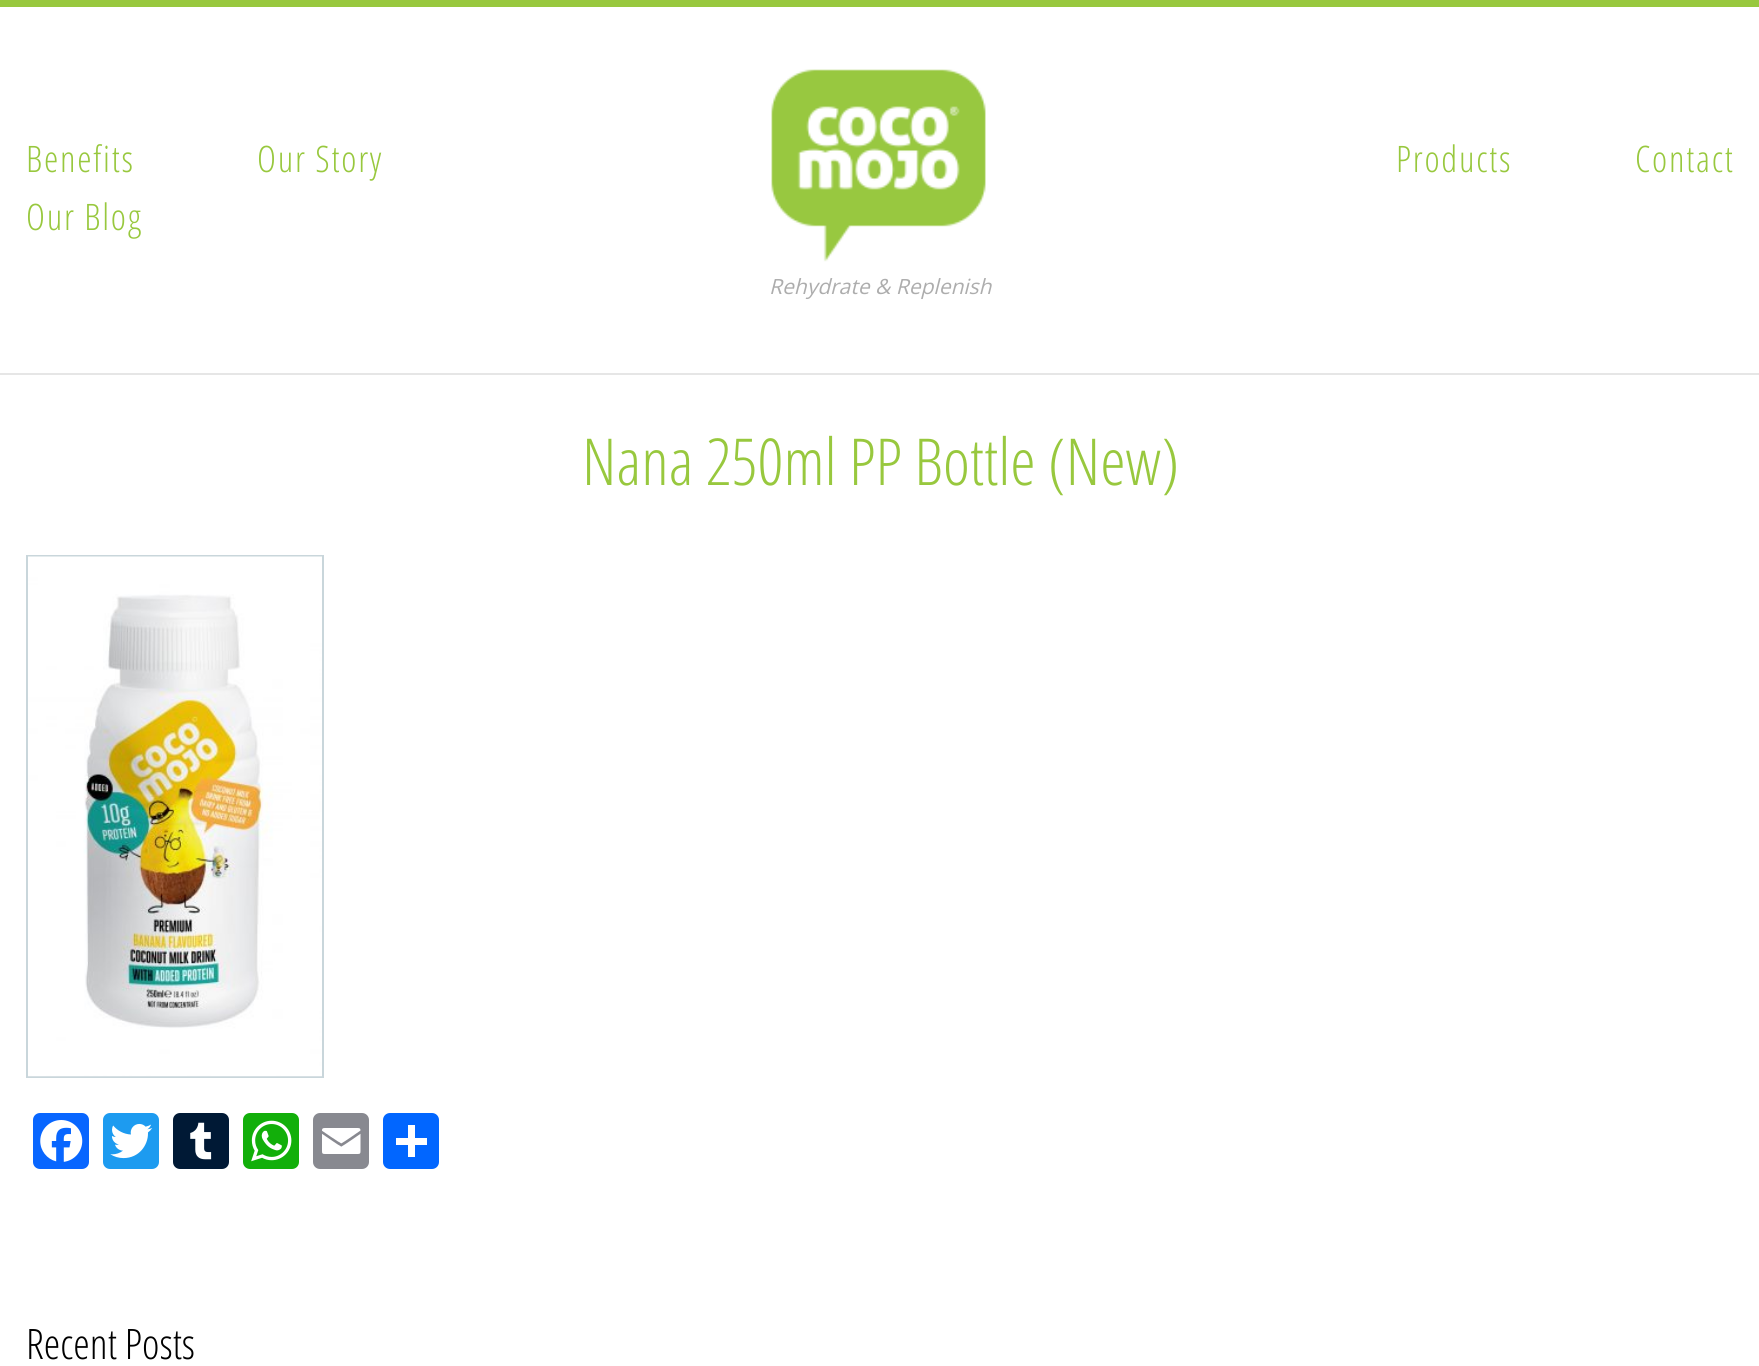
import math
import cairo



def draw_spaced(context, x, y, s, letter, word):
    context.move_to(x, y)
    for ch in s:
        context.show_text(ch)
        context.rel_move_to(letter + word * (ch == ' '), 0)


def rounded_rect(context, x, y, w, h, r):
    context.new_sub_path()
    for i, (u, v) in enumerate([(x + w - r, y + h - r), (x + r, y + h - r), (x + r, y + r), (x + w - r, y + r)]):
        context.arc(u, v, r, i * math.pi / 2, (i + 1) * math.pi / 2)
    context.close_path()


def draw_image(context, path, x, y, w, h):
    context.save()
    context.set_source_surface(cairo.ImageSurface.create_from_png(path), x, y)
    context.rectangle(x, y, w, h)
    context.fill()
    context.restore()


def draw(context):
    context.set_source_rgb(1, 1, 1)
    context.paint()
    context.set_source_rgb(152 / 255, 200 / 255, 62 / 255)
    context.rectangle(0, 0, 1759, 7)
    context.fill()
    context.set_source_rgb(230 / 255, 230 / 255, 230 / 255)
    context.rectangle(0, 373, 1759, 2)
    context.fill()
    draw_image(context, "images/1.png", 771, 69, 215, 193)
    context.rectangle(27, 556, 296, 521)
    context.set_source_rgb(201 / 255, 214 / 255, 219 / 255)
    context.stroke()
    draw_image(context, "images/2.png", 28, 556, 294, 521)
    context.set_source_rgb(8 / 255, 102 / 255, 1)
    rounded_rect(context, 33, 1113, 56, 56, 7)
    context.fill()
    draw_image(context, "images/3.png", 40, 1120, 43, 42)
    context.set_source_rgb(29 / 255, 155 / 255, 240 / 255)
    rounded_rect(context, 103, 1113, 56, 56, 7)
    context.fill()
    draw_image(context, "images/4.png", 110, 1123, 43, 36)
    context.set_source_rgb(0, 25 / 255, 53 / 255)
    rounded_rect(context, 173, 1113, 56, 56, 7)
    context.fill()
    draw_image(context, "images/5.png", 190, 1122, 22, 38)
    context.set_source_rgb(18 / 255, 175 / 255, 10 / 255)
    rounded_rect(context, 243, 1113, 56, 56, 7)
    context.fill()
    draw_image(context, "images/6.png", 251, 1120, 41, 42)
    context.set_source_rgb(136 / 255, 137 / 255, 144 / 255)
    rounded_rect(context, 313, 1113, 56, 56, 7)
    context.fill()
    draw_image(context, "images/7.png", 322, 1128, 39, 26)
    context.set_source_rgb(1 / 255, 102 / 255, 1)
    rounded_rect(context, 383, 1113, 56, 56, 7)
    context.fill()
    context.set_source_rgb(1, 1, 1)
    context.rectangle(408, 1125, 7, 32)
    context.fill()
    context.rectangle(396, 1138, 31, 7)
    context.fill()
    context.select_font_face("Open Sans Condensed Light")
    context.set_font_size(36.5)
    context.set_source_rgb(152 / 255, 200 / 255, 62 / 255)
    draw_spaced(context, 26, 172, "Benefits", 1.75, 0)
    draw_spaced(context, 257, 172, "Our Story", 1.75, 0)
    draw_spaced(context, 26, 230, "Our Blog", 1.75, 0)
    draw_spaced(context, 1396, 172, "Products", 1.75, 0)
    draw_spaced(context, 1635, 172, "Contact", 1.75, 0)
    context.select_font_face("Open Sans", cairo.FontSlant.ITALIC)
    context.set_font_size(21)
    context.set_source_rgb(173 / 255, 173 / 255, 173 / 255)
    context.move_to(769, 294)
    context.show_text("Rehydrate & Replenish")
    context.select_font_face("Open Sans Condensed Light")
    context.set_font_size(64.75)
    context.set_source_rgb(152 / 255, 200 / 255, 62 / 255)
    context.move_to(582, 485)
    context.show_text("Nana 250ml PP Bottle (New)")
    context.set_font_size(42)
    context.set_source_rgb(0, 0, 0)
    context.move_to(26, 1359)
    context.show_text("Recent Posts")


surface = cairo.ImageSurface(cairo.Format.RGB24, 1759, 1366)
context = cairo.Context(surface)
options = cairo.FontOptions()
options.set_hint_metrics(cairo.HintMetrics.OFF)
options.set_hint_style(cairo.HintStyle.NONE)
context.set_font_options(options)
context.set_miter_limit(4)
draw(context)
surface.write_to_png("out.png")
